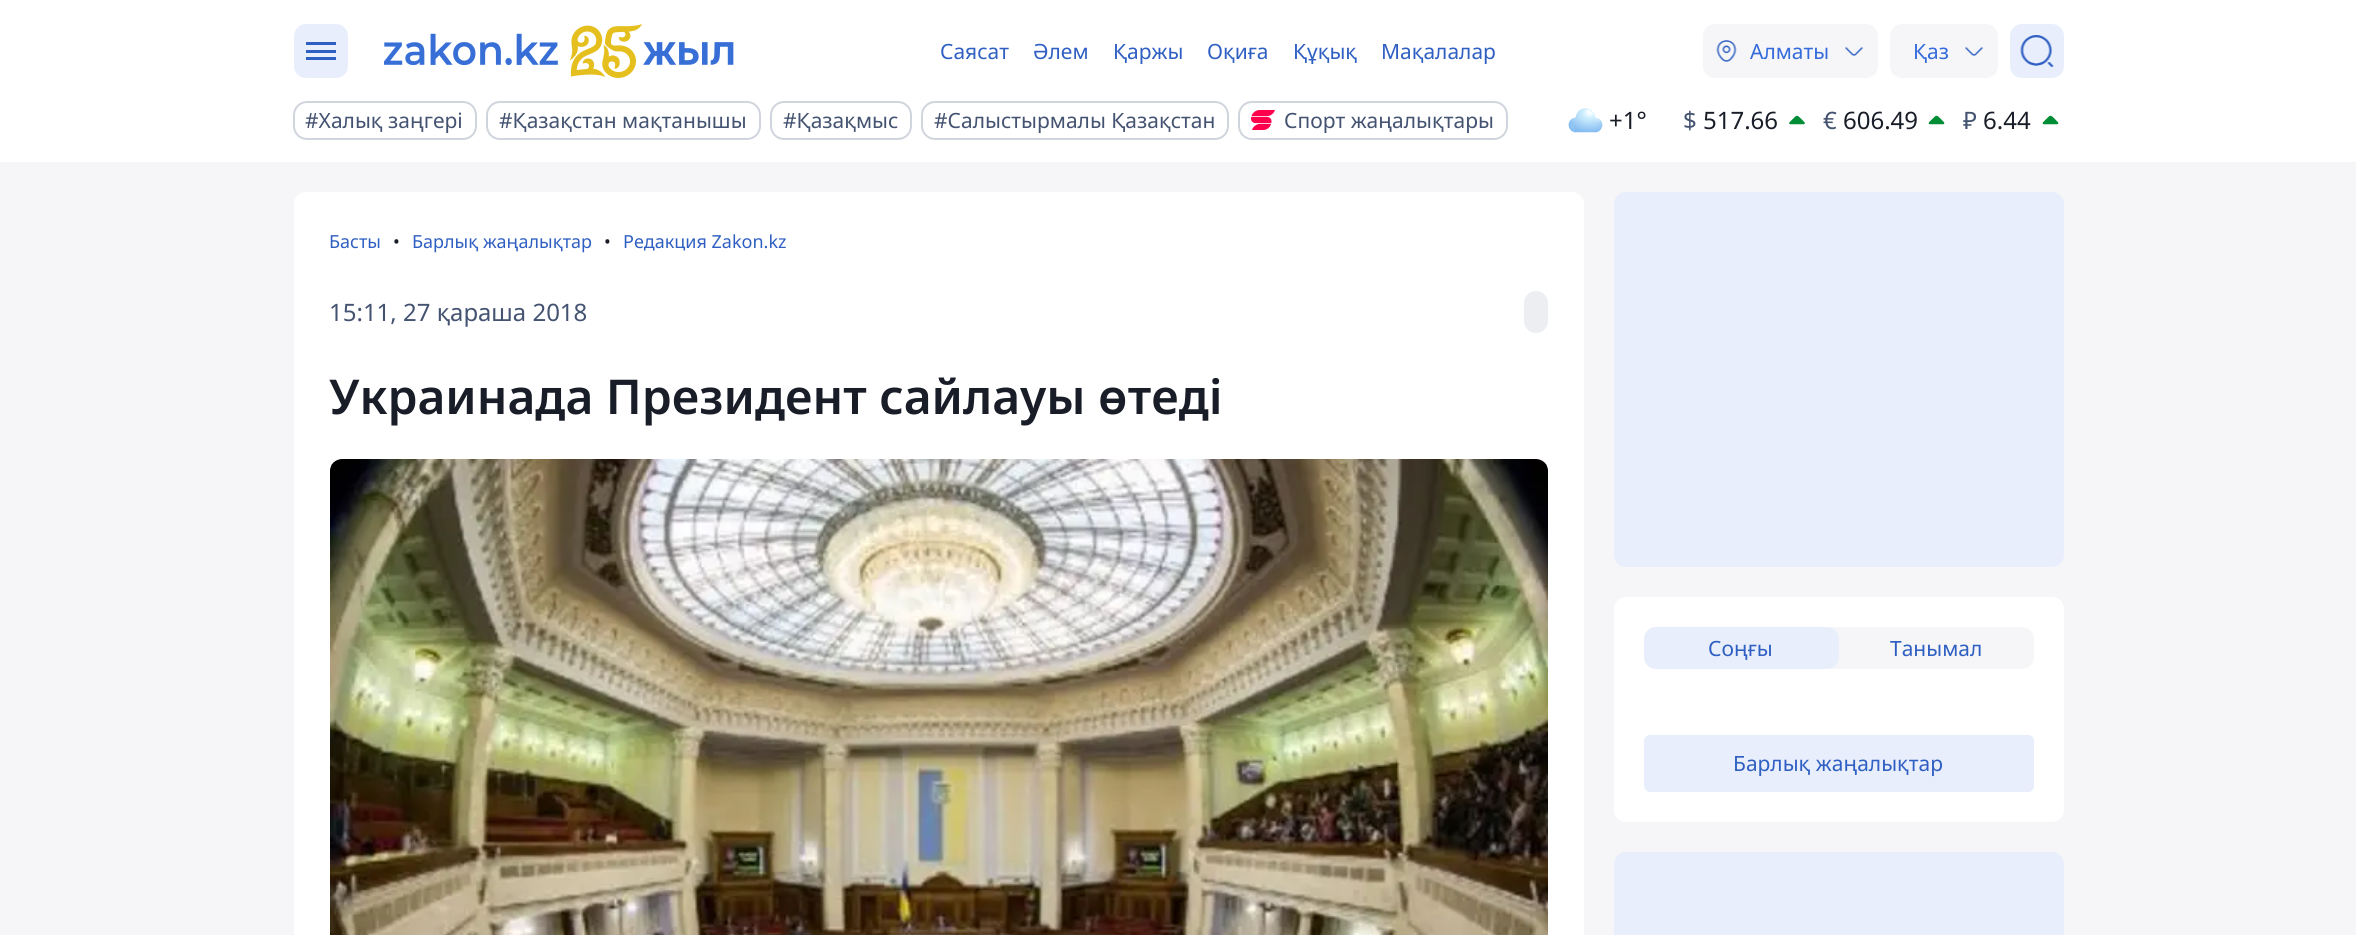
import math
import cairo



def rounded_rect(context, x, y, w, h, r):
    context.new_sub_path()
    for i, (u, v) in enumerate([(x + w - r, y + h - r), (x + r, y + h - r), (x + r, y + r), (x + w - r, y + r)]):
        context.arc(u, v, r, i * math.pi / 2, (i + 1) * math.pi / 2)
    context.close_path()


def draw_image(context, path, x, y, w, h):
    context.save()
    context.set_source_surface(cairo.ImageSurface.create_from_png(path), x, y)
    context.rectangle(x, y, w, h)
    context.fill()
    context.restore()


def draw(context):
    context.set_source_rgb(246 / 255, 246 / 255, 248 / 255)
    context.paint()
    context.set_source_rgb(1, 1, 1)
    context.rectangle(0, 0, 2356, 162)
    context.fill()
    context.set_source_rgb(232 / 255, 238 / 255, 251 / 255)
    rounded_rect(context, 294, 24, 54, 54, 12)
    context.fill()
    context.set_source_rgb(47 / 255, 95 / 255, 194 / 255)
    context.rectangle(306, 42, 30, 3)
    context.fill()
    context.rectangle(306, 50, 30, 3)
    context.fill()
    context.rectangle(306, 57, 30, 3)
    context.fill()
    draw_image(context, "images/1.png", 384, 24, 350, 54)
    context.set_source_rgb(246 / 255, 246 / 255, 248 / 255)
    rounded_rect(context, 1703, 24, 175, 54, 12)
    context.fill()
    draw_image(context, "images/2.png", 1716, 40, 21, 22)
    draw_image(context, "images/3.png", 1845, 47, 18, 9)
    rounded_rect(context, 1890, 24, 108, 54, 12)
    context.fill()
    draw_image(context, "images/3.png", 1965, 47, 18, 9)
    context.set_source_rgb(232 / 255, 238 / 255, 251 / 255)
    rounded_rect(context, 2010, 24, 54, 54, 12)
    context.fill()
    draw_image(context, "images/4.png", 2020, 35, 34, 32)
    rounded_rect(context, 294, 102, 182, 37, 13)
    context.set_source_rgb(208 / 255, 212 / 255, 220 / 255)
    context.stroke()
    rounded_rect(context, 487, 102, 273, 37, 13)
    context.stroke()
    rounded_rect(context, 771, 102, 140, 37, 13)
    context.stroke()
    rounded_rect(context, 922, 102, 306, 37, 13)
    context.stroke()
    draw_image(context, "images/5.png", 1251, 110, 24, 20)
    rounded_rect(context, 1239, 102, 268, 37, 13)
    context.stroke()
    draw_image(context, "images/6.png", 1568, 108, 35, 25)
    draw_image(context, "images/7.png", 1789, 115, 16, 10)
    draw_image(context, "images/8.png", 1928, 115, 17, 10)
    draw_image(context, "images/8.png", 2042, 115, 17, 10)
    context.set_source_rgb(1, 1, 1)
    rounded_rect(context, 294, 192, 1290, 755, 12)
    context.fill()
    context.set_source_rgb(236 / 255, 238 / 255, 241 / 255)
    rounded_rect(context, 1524, 291, 24, 42, 12)
    context.fill()
    draw_image(context, "images/9.png", 330, 459, 1218, 476)
    context.set_source_rgb(232 / 255, 238 / 255, 251 / 255)
    rounded_rect(context, 1614, 192, 450, 375, 12)
    context.fill()
    context.set_source_rgb(1, 1, 1)
    rounded_rect(context, 1614, 597, 450, 225, 12)
    context.fill()
    context.set_source_rgb(246 / 255, 246 / 255, 248 / 255)
    rounded_rect(context, 1644, 627, 390, 42, 12)
    context.fill()
    context.set_source_rgb(232 / 255, 238 / 255, 251 / 255)
    rounded_rect(context, 1644, 627, 195, 42, 12)
    context.fill()
    rounded_rect(context, 1644, 735, 390, 57, 6)
    context.fill()
    rounded_rect(context, 1614, 852, 450, 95, 12)
    context.fill()
    context.select_font_face("Noto Sans")
    context.set_font_size(21)
    context.set_source_rgb(47 / 255, 95 / 255, 194 / 255)
    context.move_to(940, 59)
    context.show_text("Саясат")
    context.move_to(1033, 59)
    context.show_text("Әлем")
    context.move_to(1113, 59)
    context.show_text("Қаржы")
    context.move_to(1207, 59)
    context.show_text("Оқиға")
    context.move_to(1293, 59)
    context.show_text("Құқық")
    context.move_to(1381, 59)
    context.show_text("Мақалалар")
    context.set_source_rgb(53 / 255, 107 / 255, 219 / 255)
    context.move_to(1750, 59)
    context.show_text("Алматы")
    context.move_to(1913, 59)
    context.show_text("Қаз")
    context.set_source_rgb(68 / 255, 83 / 255, 113 / 255)
    context.move_to(305, 128)
    context.show_text("#Халық заңгері")
    context.move_to(499, 128)
    context.show_text("#Қазақстан мақтанышы")
    context.move_to(783, 128)
    context.show_text("#Қазақмыс")
    context.move_to(934, 128)
    context.show_text("#Салыстырмалы Қазақстан")
    context.move_to(1284, 128)
    context.show_text("Спорт жаңалықтары")
    context.set_font_size(24)
    context.set_source_rgb(24 / 255, 29 / 255, 40 / 255)
    context.move_to(1609, 129)
    context.show_text("+1°")
    context.set_source_rgb(68 / 255, 83 / 255, 113 / 255)
    context.move_to(1683, 129)
    context.show_text("$")
    context.set_source_rgb(24 / 255, 29 / 255, 40 / 255)
    context.move_to(1703, 129)
    context.show_text("517.66")
    context.set_source_rgb(68 / 255, 83 / 255, 113 / 255)
    context.move_to(1823, 129)
    context.show_text("€")
    context.set_source_rgb(24 / 255, 29 / 255, 40 / 255)
    context.move_to(1843, 129)
    context.show_text("606.49")
    context.set_source_rgb(68 / 255, 83 / 255, 113 / 255)
    context.move_to(1963, 129)
    context.show_text("₽")
    context.set_source_rgb(24 / 255, 29 / 255, 40 / 255)
    context.move_to(1983, 129)
    context.show_text("6.44")
    context.set_font_size(18)
    context.set_source_rgb(47 / 255, 95 / 255, 194 / 255)
    context.move_to(329, 248)
    context.show_text("Басты")
    context.set_source_rgb(24 / 255, 29 / 255, 40 / 255)
    context.move_to(393, 248)
    context.show_text("•")
    context.set_source_rgb(47 / 255, 95 / 255, 194 / 255)
    context.move_to(412, 248)
    context.show_text("Барлық жаңалықтар")
    context.set_source_rgb(24 / 255, 29 / 255, 40 / 255)
    context.move_to(604, 248)
    context.show_text("•")
    context.set_source_rgb(47 / 255, 95 / 255, 194 / 255)
    context.move_to(623, 248)
    context.show_text("Редакция Zakon.kz")
    context.set_font_size(24)
    context.set_source_rgb(68 / 255, 83 / 255, 113 / 255)
    context.move_to(329, 321)
    context.show_text("15:11, 27 қараша 2018")
    context.select_font_face("Noto Sans SemiBold")
    context.set_font_size(48)
    context.set_source_rgb(24 / 255, 29 / 255, 40 / 255)
    context.move_to(329, 414)
    context.show_text("Украинада Президент сайлауы өтеді")
    context.select_font_face("Noto Sans")
    context.set_font_size(21)
    context.set_source_rgb(47 / 255, 95 / 255, 194 / 255)
    context.move_to(1708, 656)
    context.show_text("Соңғы")
    context.move_to(1890, 656)
    context.show_text("Танымал")
    context.move_to(1733, 771)
    context.show_text("Барлық жаңалықтар")


surface = cairo.ImageSurface(cairo.Format.RGB24, 2356, 935)
context = cairo.Context(surface)
options = cairo.FontOptions()
options.set_hint_metrics(cairo.HintMetrics.OFF)
options.set_hint_style(cairo.HintStyle.NONE)
context.set_font_options(options)
context.set_miter_limit(4)
draw(context)
surface.write_to_png("out.png")
